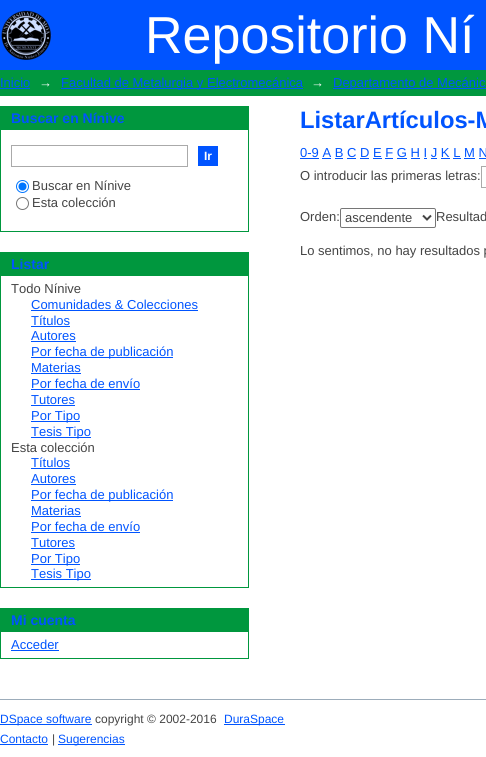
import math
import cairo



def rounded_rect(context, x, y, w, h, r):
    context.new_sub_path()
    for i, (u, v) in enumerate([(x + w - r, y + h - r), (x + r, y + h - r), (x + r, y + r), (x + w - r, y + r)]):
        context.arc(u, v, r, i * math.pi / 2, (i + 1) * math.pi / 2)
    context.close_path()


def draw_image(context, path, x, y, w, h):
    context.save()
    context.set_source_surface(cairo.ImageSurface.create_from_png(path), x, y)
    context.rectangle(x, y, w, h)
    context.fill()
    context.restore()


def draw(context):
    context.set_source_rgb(1, 1, 1)
    context.paint()
    context.set_source_rgb(0, 84 / 255, 1)
    context.rectangle(0, 0, 486, 70)
    context.fill()
    draw_image(context, "images/1.png", 1, 10, 51, 50)
    context.set_source_rgb(0, 151 / 255, 62 / 255)
    context.rectangle(0, 70, 486, 26)
    context.fill()
    context.set_source_rgb(0, 84 / 255, 1)
    context.rectangle(0, 88, 30, 1)
    context.fill()
    context.rectangle(61, 88, 242, 1)
    context.fill()
    context.rectangle(333, 88, 153, 1)
    context.fill()
    context.set_source_rgb(0, 151 / 255, 62 / 255)
    context.rectangle(0, 106, 249, 24)
    context.fill()
    context.rectangle(248, 130, 1, 102)
    context.fill()
    context.rectangle(0, 231, 249, 1)
    context.fill()
    context.rectangle(0, 130, 1, 102)
    context.fill()
    context.rectangle(11.5, 145.5, 176, 21)
    context.set_source_rgb(170 / 255, 170 / 255, 170 / 255)
    context.set_line_width(1)
    context.stroke()
    context.set_source_rgb(0, 84 / 255, 1)
    context.rectangle(198, 146, 20, 20)
    context.fill()
    context.arc(22.5, 186.5, 6, 0, 2 * math.pi)
    context.set_source_rgb(0, 117 / 255, 1)
    context.stroke()
    context.arc(22.5, 186.5, 4, 0, 2 * math.pi)
    context.fill()
    context.arc(22.5, 203.5, 6, 0, 2 * math.pi)
    context.set_source_rgb(118 / 255, 118 / 255, 118 / 255)
    context.stroke()
    context.set_source_rgb(0, 151 / 255, 62 / 255)
    context.rectangle(0, 252, 249, 24)
    context.fill()
    context.rectangle(248, 276, 1, 312)
    context.fill()
    context.rectangle(0, 587, 249, 1)
    context.fill()
    context.rectangle(0, 276, 1, 312)
    context.fill()
    context.set_source_rgb(0, 84 / 255, 1)
    context.rectangle(31, 310, 167, 1)
    context.fill()
    context.rectangle(31, 326, 39, 1)
    context.fill()
    context.rectangle(31, 341, 45, 1)
    context.fill()
    context.rectangle(31, 357, 142, 1)
    context.fill()
    context.rectangle(31, 373, 50, 1)
    context.fill()
    context.rectangle(31, 389, 109, 1)
    context.fill()
    context.rectangle(31, 405, 44, 1)
    context.fill()
    context.rectangle(31, 421, 49, 1)
    context.fill()
    context.rectangle(31, 437, 60, 1)
    context.fill()
    context.rectangle(31, 468, 39, 1)
    context.fill()
    context.rectangle(31, 484, 45, 1)
    context.fill()
    context.rectangle(31, 500, 142, 1)
    context.fill()
    context.rectangle(31, 516, 50, 1)
    context.fill()
    context.rectangle(31, 532, 109, 1)
    context.fill()
    context.rectangle(31, 548, 44, 1)
    context.fill()
    context.rectangle(31, 564, 49, 1)
    context.fill()
    context.rectangle(31, 579, 60, 1)
    context.fill()
    context.set_source_rgb(0, 151 / 255, 62 / 255)
    context.rectangle(0, 608, 249, 24)
    context.fill()
    context.rectangle(248, 632, 1, 27)
    context.fill()
    context.rectangle(0, 658, 249, 1)
    context.fill()
    context.rectangle(0, 632, 1, 27)
    context.fill()
    context.set_source_rgb(0, 84 / 255, 1)
    context.rectangle(11, 650, 48, 1)
    context.fill()
    context.rectangle(300, 158, 19, 1)
    context.fill()
    context.rectangle(322, 158, 9, 1)
    context.fill()
    context.rectangle(335, 158, 8, 1)
    context.fill()
    context.rectangle(347, 158, 9, 1)
    context.fill()
    context.rectangle(360, 158, 9, 1)
    context.fill()
    context.rectangle(373, 158, 9, 1)
    context.fill()
    context.rectangle(385, 158, 8, 1)
    context.fill()
    context.rectangle(397, 158, 10, 1)
    context.fill()
    context.rectangle(411, 158, 9, 1)
    context.fill()
    context.rectangle(424, 158, 3, 1)
    context.fill()
    context.rectangle(431, 158, 6, 1)
    context.fill()
    context.rectangle(441, 158, 9, 1)
    context.fill()
    context.rectangle(453, 158, 8, 1)
    context.fill()
    context.rectangle(464, 158, 11, 1)
    context.fill()
    context.rectangle(479, 158, 7, 1)
    context.fill()
    context.rectangle(481.5, 166.5, 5, 21)
    context.set_source_rgb(170 / 255, 170 / 255, 170 / 255)
    context.stroke()
    rounded_rect(context, 340.5, 208.5, 95, 19, 1.5)
    context.set_source_rgb(118 / 255, 118 / 255, 118 / 255)
    context.stroke()
    context.new_path()
    context.move_to(423, 215.5)
    context.line_to(427, 219.5)
    context.line_to(431, 215.5)
    context.set_source_rgb(68 / 255, 68 / 255, 68 / 255)
    context.set_line_width(2)
    context.stroke()
    context.set_source_rgb(156 / 255, 172 / 255, 186 / 255)
    context.rectangle(0, 699, 486, 1)
    context.fill()
    context.set_source_rgb(0, 84 / 255, 1)
    context.rectangle(0, 724, 92, 1)
    context.fill()
    context.rectangle(224, 724, 61, 1)
    context.fill()
    context.rectangle(0, 744, 48, 1)
    context.fill()
    context.rectangle(58, 744, 67, 1)
    context.fill()
    context.select_font_face("Liberation Sans")
    context.set_font_size(52)
    context.set_source_rgb(1, 1, 1)
    context.move_to(145, 53)
    context.show_text("Repositorio Ní")
    context.set_font_size(13)
    context.set_source_rgb(0, 84 / 255, 1)
    context.move_to(0, 87)
    context.show_text("Inicio")
    context.set_source_rgb(1, 1, 1)
    context.move_to(39, 87)
    context.show_text("→")
    context.set_source_rgb(0, 84 / 255, 1)
    context.move_to(61, 87)
    context.show_text("Facultad de Metalurgia y Electromecánica")
    context.set_source_rgb(1, 1, 1)
    context.move_to(311, 87)
    context.show_text("→")
    context.set_source_rgb(0, 84 / 255, 1)
    context.move_to(333, 87)
    context.show_text("Departamento de Mecánic")
    context.select_font_face("Liberation Sans", cairo.FontSlant.NORMAL, cairo.FontWeight.BOLD)
    context.set_font_size(14)
    context.move_to(11, 123)
    context.show_text("Buscar en Nínive")
    context.set_font_size(12)
    context.set_source_rgb(1, 1, 1)
    context.move_to(204, 160)
    context.show_text("Ir")
    context.select_font_face("Liberation Sans")
    context.set_font_size(13)
    context.set_source_rgb(68 / 255, 68 / 255, 68 / 255)
    context.move_to(32, 190)
    context.show_text("Buscar en Nínive")
    context.move_to(32, 207)
    context.show_text("Esta colección")
    context.select_font_face("Liberation Sans", cairo.FontSlant.NORMAL, cairo.FontWeight.BOLD)
    context.set_font_size(14)
    context.set_source_rgb(0, 84 / 255, 1)
    context.move_to(11, 269)
    context.show_text("Listar")
    context.select_font_face("Liberation Sans")
    context.set_font_size(13)
    context.set_source_rgb(68 / 255, 68 / 255, 68 / 255)
    context.move_to(11, 293)
    context.show_text("Todo Nínive")
    context.set_source_rgb(0, 84 / 255, 1)
    context.move_to(31, 309)
    context.show_text("Comunidades & Colecciones")
    context.move_to(31, 325)
    context.show_text("Títulos")
    context.move_to(31, 340)
    context.show_text("Autores")
    context.move_to(31, 356)
    context.show_text("Por fecha de publicación")
    context.move_to(31, 372)
    context.show_text("Materias")
    context.move_to(31, 388)
    context.show_text("Por fecha de envío")
    context.move_to(31, 404)
    context.show_text("Tutores")
    context.move_to(31, 420)
    context.show_text("Por Tipo")
    context.move_to(31, 436)
    context.show_text("Tesis Tipo")
    context.set_source_rgb(68 / 255, 68 / 255, 68 / 255)
    context.move_to(11, 452)
    context.show_text("Esta colección")
    context.set_source_rgb(0, 84 / 255, 1)
    context.move_to(31, 467)
    context.show_text("Títulos")
    context.move_to(31, 483)
    context.show_text("Autores")
    context.move_to(31, 499)
    context.show_text("Por fecha de publicación")
    context.move_to(31, 515)
    context.show_text("Materias")
    context.move_to(31, 531)
    context.show_text("Por fecha de envío")
    context.move_to(31, 547)
    context.show_text("Tutores")
    context.move_to(31, 563)
    context.show_text("Por Tipo")
    context.move_to(31, 578)
    context.show_text("Tesis Tipo")
    context.select_font_face("Liberation Sans", cairo.FontSlant.NORMAL, cairo.FontWeight.BOLD)
    context.set_font_size(14)
    context.move_to(11, 625)
    context.show_text("Mi cuenta")
    context.select_font_face("Liberation Sans")
    context.set_font_size(13)
    context.move_to(11, 649)
    context.show_text("Acceder")
    context.select_font_face("Liberation Sans", cairo.FontSlant.NORMAL, cairo.FontWeight.BOLD)
    context.set_font_size(23.75)
    context.move_to(300, 128)
    context.show_text("ListarArtículos-M")
    context.select_font_face("Liberation Sans")
    context.set_font_size(13)
    context.move_to(300, 157)
    context.show_text("0-9 A B C D E F G H I J K L M N")
    context.set_source_rgb(68 / 255, 68 / 255, 68 / 255)
    context.move_to(300, 180)
    context.show_text("O introducir las primeras letras:")
    context.move_to(300, 221)
    context.show_text("Orden:")
    context.move_to(345, 222)
    context.show_text("ascendente")
    context.move_to(436, 221)
    context.show_text("Resultad")
    context.move_to(300, 255)
    context.show_text("Lo sentimos, no hay resultados p")
    context.set_font_size(12)
    context.set_source_rgb(0, 84 / 255, 1)
    context.move_to(0, 723)
    context.show_text("DSpace software")
    context.set_source_rgb(68 / 255, 68 / 255, 68 / 255)
    context.move_to(95, 723)
    context.show_text("copyright © 2002-2016")
    context.set_source_rgb(0, 84 / 255, 1)
    context.move_to(224, 723)
    context.show_text("DuraSpace")
    context.move_to(0, 743)
    context.show_text("Contacto")
    context.set_source_rgb(68 / 255, 68 / 255, 68 / 255)
    context.move_to(52, 743)
    context.show_text("|")
    context.set_source_rgb(0, 84 / 255, 1)
    context.move_to(58, 743)
    context.show_text("Sugerencias")


surface = cairo.ImageSurface(cairo.Format.RGB24, 486, 757)
context = cairo.Context(surface)
options = cairo.FontOptions()
options.set_hint_metrics(cairo.HintMetrics.OFF)
options.set_hint_style(cairo.HintStyle.NONE)
context.set_font_options(options)
context.set_miter_limit(4)
draw(context)
surface.write_to_png("out.png")
